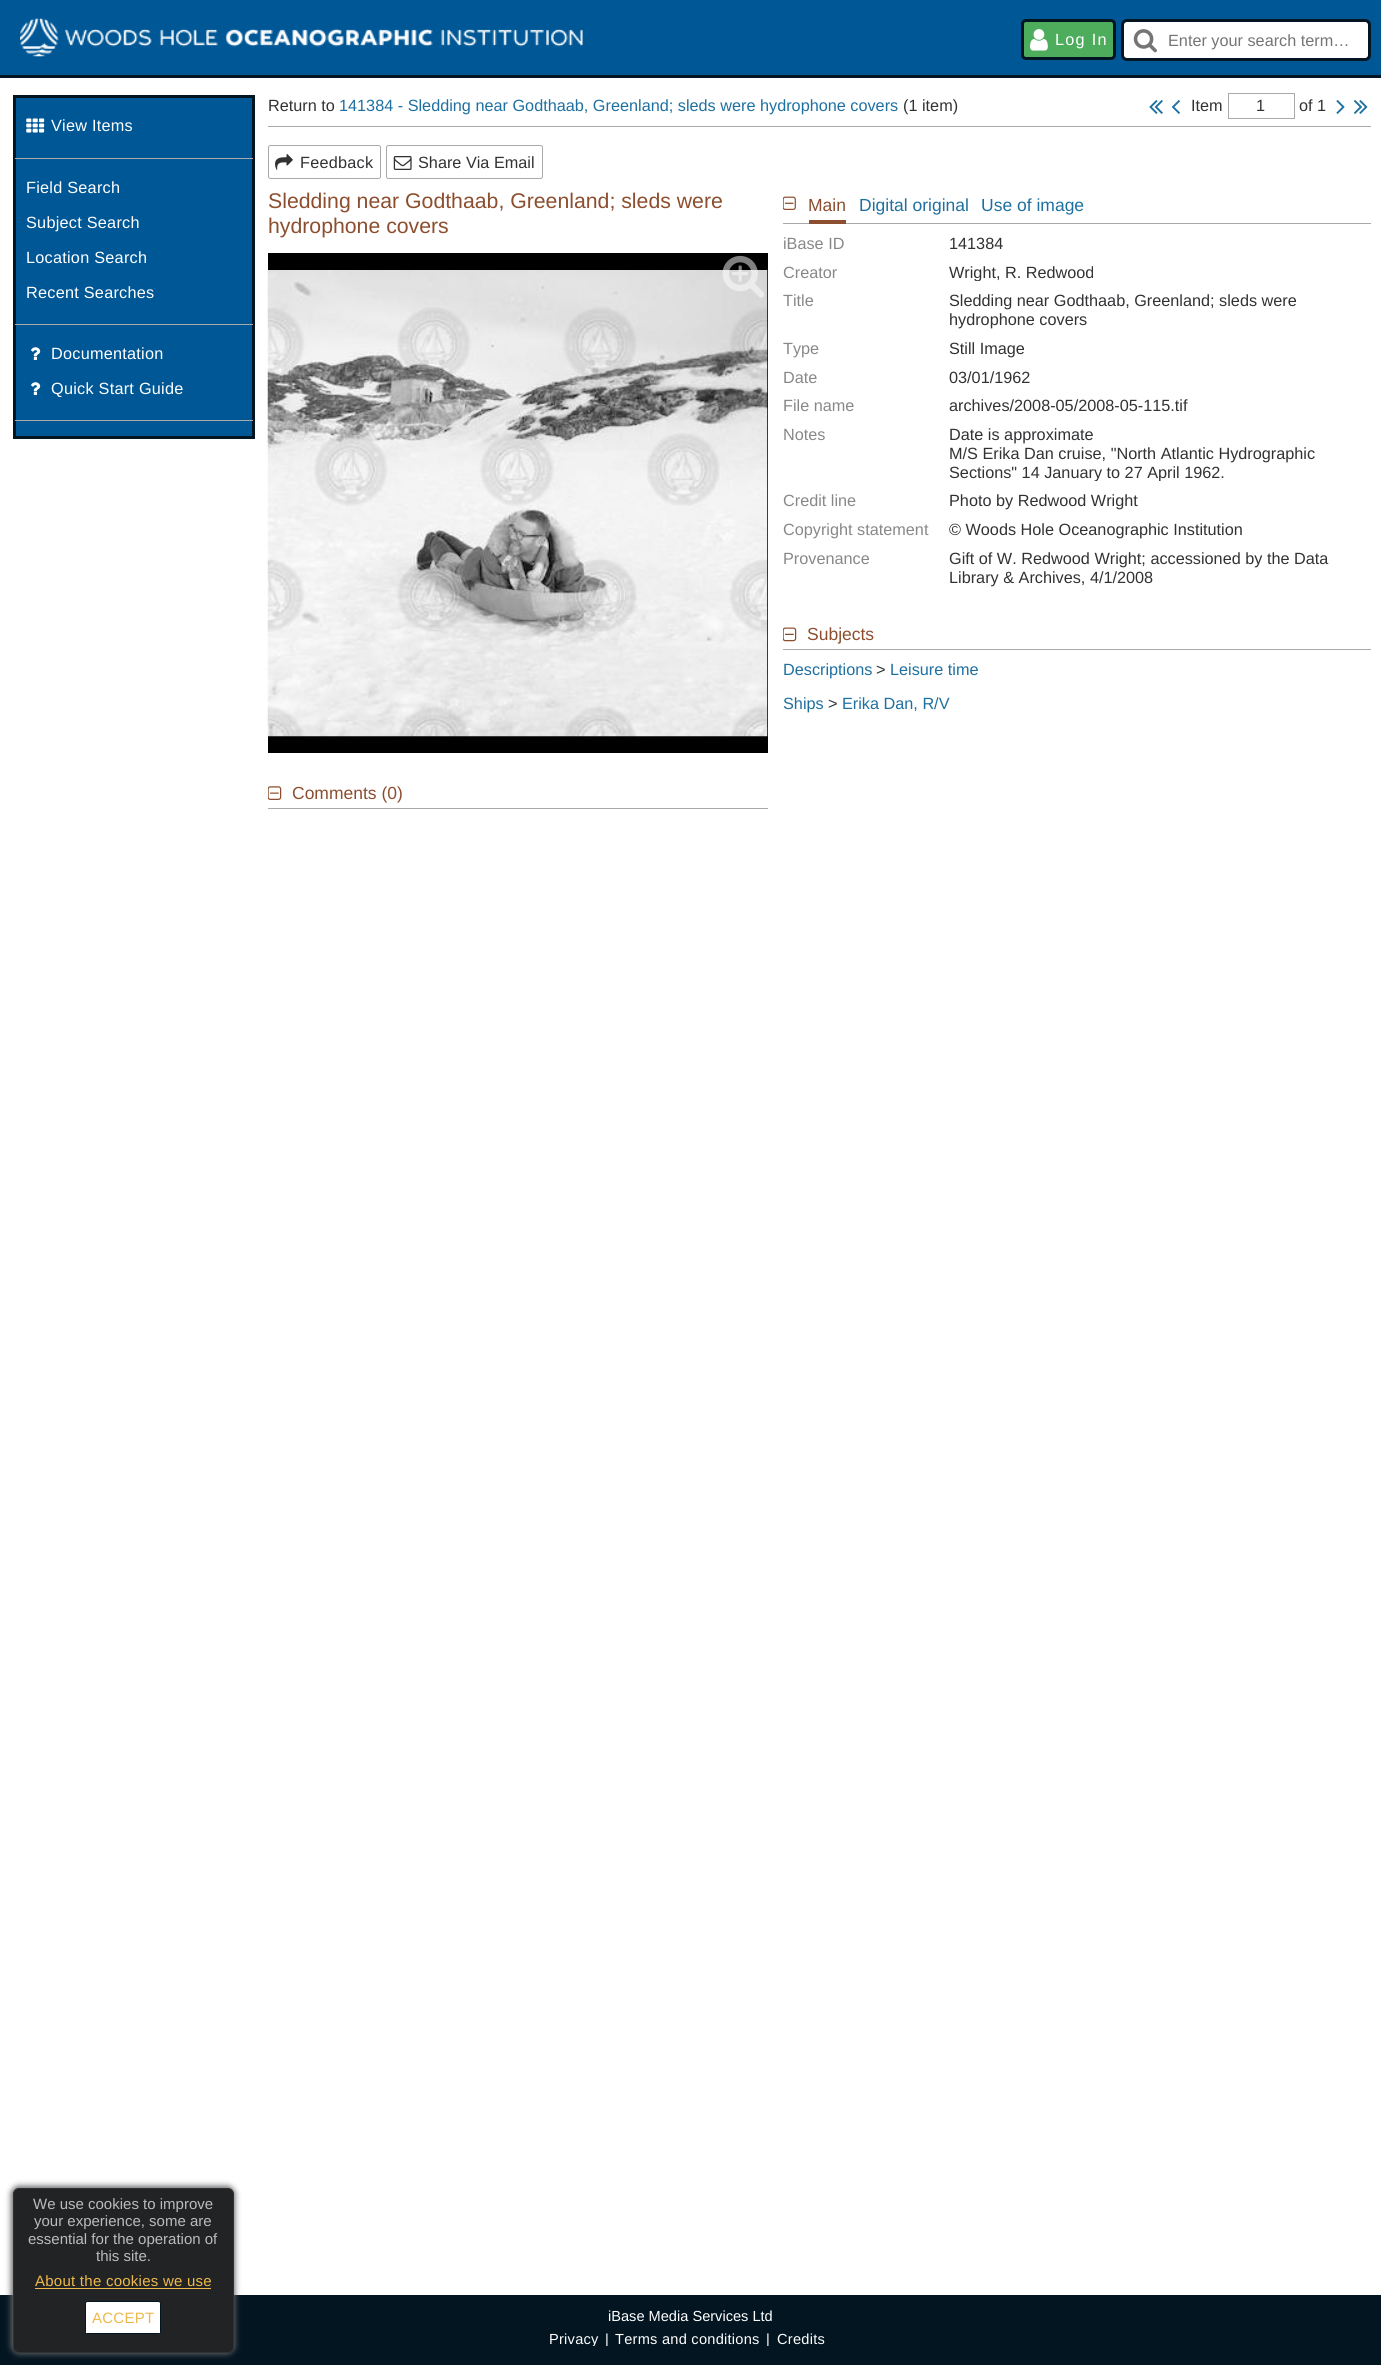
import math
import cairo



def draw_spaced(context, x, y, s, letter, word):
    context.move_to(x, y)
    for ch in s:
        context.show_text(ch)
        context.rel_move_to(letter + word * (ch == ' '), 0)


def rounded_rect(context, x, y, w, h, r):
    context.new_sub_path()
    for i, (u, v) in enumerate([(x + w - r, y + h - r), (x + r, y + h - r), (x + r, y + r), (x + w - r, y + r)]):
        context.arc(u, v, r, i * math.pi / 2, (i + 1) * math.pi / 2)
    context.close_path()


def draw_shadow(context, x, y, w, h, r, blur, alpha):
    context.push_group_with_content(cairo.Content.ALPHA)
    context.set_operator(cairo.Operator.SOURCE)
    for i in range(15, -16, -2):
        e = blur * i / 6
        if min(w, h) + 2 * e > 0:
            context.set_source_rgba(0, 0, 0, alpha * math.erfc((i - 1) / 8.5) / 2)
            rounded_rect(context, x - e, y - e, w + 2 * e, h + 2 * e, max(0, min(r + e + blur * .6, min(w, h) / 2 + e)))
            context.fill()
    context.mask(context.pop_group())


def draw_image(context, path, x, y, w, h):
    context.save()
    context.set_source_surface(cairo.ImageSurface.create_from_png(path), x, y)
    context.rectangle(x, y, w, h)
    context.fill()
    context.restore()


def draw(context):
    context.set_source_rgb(1, 1, 1)
    context.paint()
    context.set_source_rgb(0, 87 / 255, 150 / 255)
    context.rectangle(0, 0, 1381, 75)
    context.fill()
    context.set_source_rgb(3 / 255, 21 / 255, 33 / 255)
    context.rectangle(0, 75, 1381, 3)
    context.fill()
    draw_image(context, "images/1.png", 20, 18, 563, 39)
    context.set_source_rgb(78 / 255, 173 / 255, 92 / 255)
    rounded_rect(context, 1022.5, 20.5, 92, 38, 3.5)
    context.fill_preserve()
    context.set_source_rgb(3 / 255, 21 / 255, 33 / 255)
    context.set_line_width(3)
    context.stroke()
    draw_image(context, "images/2.png", 1030, 29, 18, 22)
    context.set_source_rgb(1, 1, 1)
    rounded_rect(context, 1122.5, 20.5, 247, 39, 4.5)
    context.fill_preserve()
    context.set_source_rgb(3 / 255, 21 / 255, 33 / 255)
    context.stroke()
    draw_image(context, "images/3.png", 1133, 29, 24, 24)
    context.set_source_rgb(0, 87 / 255, 150 / 255)
    context.rectangle(14.5, 96.5, 239, 341)
    context.fill_preserve()
    context.set_source_rgb(3 / 255, 21 / 255, 33 / 255)
    context.stroke()
    context.set_source_rgb(170 / 255, 170 / 255, 170 / 255)
    context.rectangle(15, 158, 238, 1)
    context.fill()
    draw_image(context, "images/4.png", 26, 118, 19, 15)
    context.rectangle(15, 324, 238, 1)
    context.fill()
    context.rectangle(15, 420, 238, 1)
    context.fill()
    draw_image(context, "images/5.png", 31, 347, 10, 13)
    draw_image(context, "images/5.png", 31, 382, 10, 13)
    context.rectangle(268, 126, 1103, 1)
    context.fill()
    draw_image(context, "images/6.png", 1149, 100, 14, 14)
    draw_image(context, "images/7.png", 1171, 100, 9, 14)
    context.rectangle(1228.5, 93.5, 66, 25)
    context.set_line_width(1)
    context.stroke()
    draw_image(context, "images/8.png", 1336, 100, 9, 14)
    draw_image(context, "images/9.png", 1354, 100, 14, 14)
    rounded_rect(context, 268.5, 145.5, 112, 33, 2)
    context.stroke()
    draw_image(context, "images/10.png", 275, 154, 18, 16)
    rounded_rect(context, 386.5, 145.5, 156, 33, 2)
    context.stroke()
    draw_image(context, "images/11.png", 393, 156, 19, 14)
    context.set_source_rgb(0, 0, 0)
    context.rectangle(268, 253, 500, 500)
    context.fill()
    draw_image(context, "images/13.png", 267, 270, 501, 467)
    draw_image(context, "images/12.png", 722, 255, 43, 43)
    context.set_source_rgb(170 / 255, 170 / 255, 170 / 255)
    context.rectangle(268, 808, 500, 1)
    context.fill()
    draw_image(context, "images/14.png", 268, 786, 14, 14)
    draw_image(context, "images/15.png", 783, 196, 13, 14)
    context.rectangle(783, 223, 588, 1)
    context.fill()
    context.set_source_rgb(140 / 255, 78 / 255, 46 / 255)
    context.rectangle(809, 220, 37, 4)
    context.fill()
    context.set_source_rgb(170 / 255, 170 / 255, 170 / 255)
    context.rectangle(783, 649, 588, 1)
    context.fill()
    draw_image(context, "images/16.png", 783, 627, 14, 15)
    context.set_source_rgb(3 / 255, 21 / 255, 33 / 255)
    context.rectangle(0, 2295, 1381, 70)
    context.fill()
    context.set_source_rgb(102 / 255, 102 / 255, 102 / 255)
    draw_shadow(context, 11, 2186, 224, 168, 8, 3, 1)
    context.set_source_rgb(34 / 255, 35 / 255, 36 / 255)
    rounded_rect(context, 13.5, 2188.5, 220, 164, 5.5)
    context.fill_preserve()
    context.set_source_rgb(49 / 255, 50 / 255, 52 / 255)
    context.stroke()
    context.set_source_rgb(237 / 255, 185 / 255, 74 / 255)
    context.rectangle(35, 2288, 176, 1)
    context.fill()
    context.set_source_rgb(1, 1, 1)
    rounded_rect(context, 85.5, 2301.5, 75, 32, 2)
    context.fill_preserve()
    context.set_source_rgb(3 / 255, 21 / 255, 33 / 255)
    context.stroke()
    context.set_source_rgb(1, 1, 1)
    context.rectangle(86, 2303, 74, 30)
    context.fill()
    context.select_font_face("Liberation Sans")
    context.set_font_size(16.25)
    draw_spaced(context, 1055, 45, "Log In", 1.25, 0)
    context.set_source_rgb(117 / 255, 117 / 255, 117 / 255)
    context.move_to(1168, 46)
    context.show_text("Enter your search term…")
    context.set_source_rgb(1, 1, 1)
    draw_spaced(context, 51, 131, "View Items", 0.25, 0)
    draw_spaced(context, 26, 193, "Field Search", 0.25, 0)
    draw_spaced(context, 26, 228, "Subject Search", 0.25, 0)
    draw_spaced(context, 26, 263, "Location Search", 0.25, 0)
    draw_spaced(context, 26, 298, "Recent Searches", 0.25, 0)
    draw_spaced(context, 51, 359, "Documentation", 0.25, 0)
    draw_spaced(context, 51, 394, "Quick Start Guide", 0.25, 0)
    context.set_source_rgb(49 / 255, 50 / 255, 52 / 255)
    context.move_to(268, 111)
    context.show_text("Return to")
    context.set_source_rgb(30 / 255, 112 / 255, 160 / 255)
    context.move_to(339, 111)
    context.show_text("141384 - Sledding near Godthaab, Greenland; sleds were hydrophone covers")
    context.set_source_rgb(49 / 255, 50 / 255, 52 / 255)
    context.move_to(903, 111)
    context.show_text("(1 item)")
    context.move_to(1191, 111)
    context.show_text("Item")
    context.move_to(1256, 111)
    context.show_text("1")
    context.move_to(1299, 111)
    context.show_text("of 1")
    draw_spaced(context, 300, 168, "Feedback", 0.25, 0)
    context.move_to(418, 168)
    context.show_text("Share Via Email")
    context.set_font_size(21.25)
    context.set_source_rgb(140 / 255, 78 / 255, 46 / 255)
    context.move_to(268, 208)
    context.show_text("Sledding near Godthaab, Greenland; sleds were")
    context.move_to(268, 233)
    context.show_text("hydrophone covers")
    context.set_font_size(17.5)
    context.move_to(292, 799)
    context.show_text("Comments (0)")
    context.move_to(808, 211)
    context.show_text("Main")
    context.set_source_rgb(30 / 255, 112 / 255, 160 / 255)
    context.move_to(859, 211)
    context.show_text("Digital original")
    context.move_to(981, 211)
    context.show_text("Use of image")
    context.set_font_size(16.25)
    context.set_source_rgb(136 / 255, 136 / 255, 136 / 255)
    context.move_to(783, 249)
    context.show_text("iBase ID")
    context.set_source_rgb(49 / 255, 50 / 255, 52 / 255)
    context.move_to(949, 249)
    context.show_text("141384")
    context.set_source_rgb(136 / 255, 136 / 255, 136 / 255)
    context.move_to(783, 278)
    context.show_text("Creator")
    context.save()
    context.rectangle(949, 263, 422, 18)
    context.clip()
    context.set_source_rgb(49 / 255, 50 / 255, 52 / 255)
    context.move_to(949, 278)
    context.show_text("Wright, R. Redwood")
    context.restore()
    context.move_to(783, 306)
    context.show_text("Title")
    context.set_source_rgb(49 / 255, 50 / 255, 52 / 255)
    context.move_to(949, 306)
    context.show_text("Sledding near Godthaab, Greenland; sleds were")
    context.move_to(949, 325)
    context.show_text("hydrophone covers")
    context.set_source_rgb(136 / 255, 136 / 255, 136 / 255)
    context.move_to(783, 354)
    context.show_text("Type")
    context.set_source_rgb(49 / 255, 50 / 255, 52 / 255)
    context.move_to(949, 354)
    context.show_text("Still Image")
    context.set_source_rgb(136 / 255, 136 / 255, 136 / 255)
    context.move_to(783, 383)
    context.show_text("Date")
    context.set_source_rgb(49 / 255, 50 / 255, 52 / 255)
    context.move_to(949, 383)
    context.show_text("03/01/1962")
    context.set_source_rgb(136 / 255, 136 / 255, 136 / 255)
    context.move_to(783, 411)
    context.show_text("File name")
    context.set_source_rgb(49 / 255, 50 / 255, 52 / 255)
    context.move_to(949, 411)
    context.show_text("archives/2008-05/2008-05-115.tif")
    context.set_source_rgb(136 / 255, 136 / 255, 136 / 255)
    context.move_to(783, 440)
    context.show_text("Notes")
    context.set_source_rgb(49 / 255, 50 / 255, 52 / 255)
    context.move_to(949, 440)
    context.show_text("Date is approximate")
    context.move_to(949, 459)
    context.show_text("M/S Erika Dan cruise, \"North Atlantic Hydrographic")
    context.save()
    context.rectangle(949, 425, 422, 56)
    context.clip()
    context.move_to(949, 478)
    context.show_text("Sections\" 14 January to 27 April 1962.")
    context.restore()
    context.set_source_rgb(136 / 255, 136 / 255, 136 / 255)
    context.move_to(783, 506)
    context.show_text("Credit line")
    context.set_source_rgb(49 / 255, 50 / 255, 52 / 255)
    context.move_to(949, 506)
    context.show_text("Photo by Redwood Wright")
    context.set_source_rgb(136 / 255, 136 / 255, 136 / 255)
    context.move_to(783, 535)
    context.show_text("Copyright statement")
    context.set_source_rgb(49 / 255, 50 / 255, 52 / 255)
    context.move_to(949, 535)
    context.show_text("© Woods Hole Oceanographic Institution")
    context.set_source_rgb(136 / 255, 136 / 255, 136 / 255)
    context.move_to(783, 564)
    context.show_text("Provenance")
    context.set_source_rgb(49 / 255, 50 / 255, 52 / 255)
    context.move_to(949, 564)
    context.show_text("Gift of W. Redwood Wright; accessioned by the Data")
    context.move_to(949, 583)
    context.show_text("Library & Archives, 4/1/2008")
    context.set_font_size(17.5)
    context.set_source_rgb(140 / 255, 78 / 255, 46 / 255)
    context.move_to(807, 640)
    context.show_text("Subjects")
    context.set_font_size(16.25)
    context.set_source_rgb(30 / 255, 112 / 255, 160 / 255)
    context.move_to(783, 675)
    context.show_text("Descriptions")
    context.set_source_rgb(49 / 255, 50 / 255, 52 / 255)
    context.move_to(876, 675)
    context.show_text(">")
    context.set_source_rgb(30 / 255, 112 / 255, 160 / 255)
    context.move_to(890, 675)
    context.show_text("Leisure time")
    context.move_to(783, 709)
    context.show_text("Ships")
    context.set_source_rgb(49 / 255, 50 / 255, 52 / 255)
    context.move_to(828, 709)
    context.show_text(">")
    context.set_source_rgb(30 / 255, 112 / 255, 160 / 255)
    context.move_to(842, 709)
    context.show_text("Erika Dan, R/V")
    context.set_font_size(15)
    context.set_source_rgb(187 / 255, 187 / 255, 187 / 255)
    context.move_to(33, 2209)
    context.show_text("We use cookies to improve")
    context.move_to(34, 2226)
    context.show_text("your experience, some are")
    context.move_to(28, 2244)
    context.show_text("essential for the operation of")
    context.move_to(96, 2261)
    context.show_text("this site.")
    context.set_source_rgb(237 / 255, 185 / 255, 74 / 255)
    draw_spaced(context, 35, 2286, "About the cookies we use", 0.25, 0)
    draw_spaced(context, 92, 2323, "ACCEPT", 0.25, 0)
    context.set_font_size(14.6)
    context.set_source_rgb(1, 1, 1)
    context.move_to(608, 2321)
    context.show_text("iBase Media Services Ltd")
    context.save()
    context.rectangle(0, 2330, 1381, 16)
    context.clip()
    draw_spaced(context, 549, 2344, "Privacy", 0.25, 0)
    draw_spaced(context, 605, 2344, "|", 0.25, 0)
    context.restore()
    draw_spaced(context, 615, 2344, "Terms and conditions", 0.25, 0)
    context.save()
    context.rectangle(0, 2330, 1381, 16)
    context.clip()
    draw_spaced(context, 766, 2344, "|", 0.25, 0)
    context.restore()
    draw_spaced(context, 777, 2344, "Credits", 0.25, 0)


surface = cairo.ImageSurface(cairo.Format.RGB24, 1381, 2365)
context = cairo.Context(surface)
options = cairo.FontOptions()
options.set_hint_metrics(cairo.HintMetrics.OFF)
options.set_hint_style(cairo.HintStyle.NONE)
context.set_font_options(options)
context.set_miter_limit(4)
draw(context)
surface.write_to_png("out.png")
